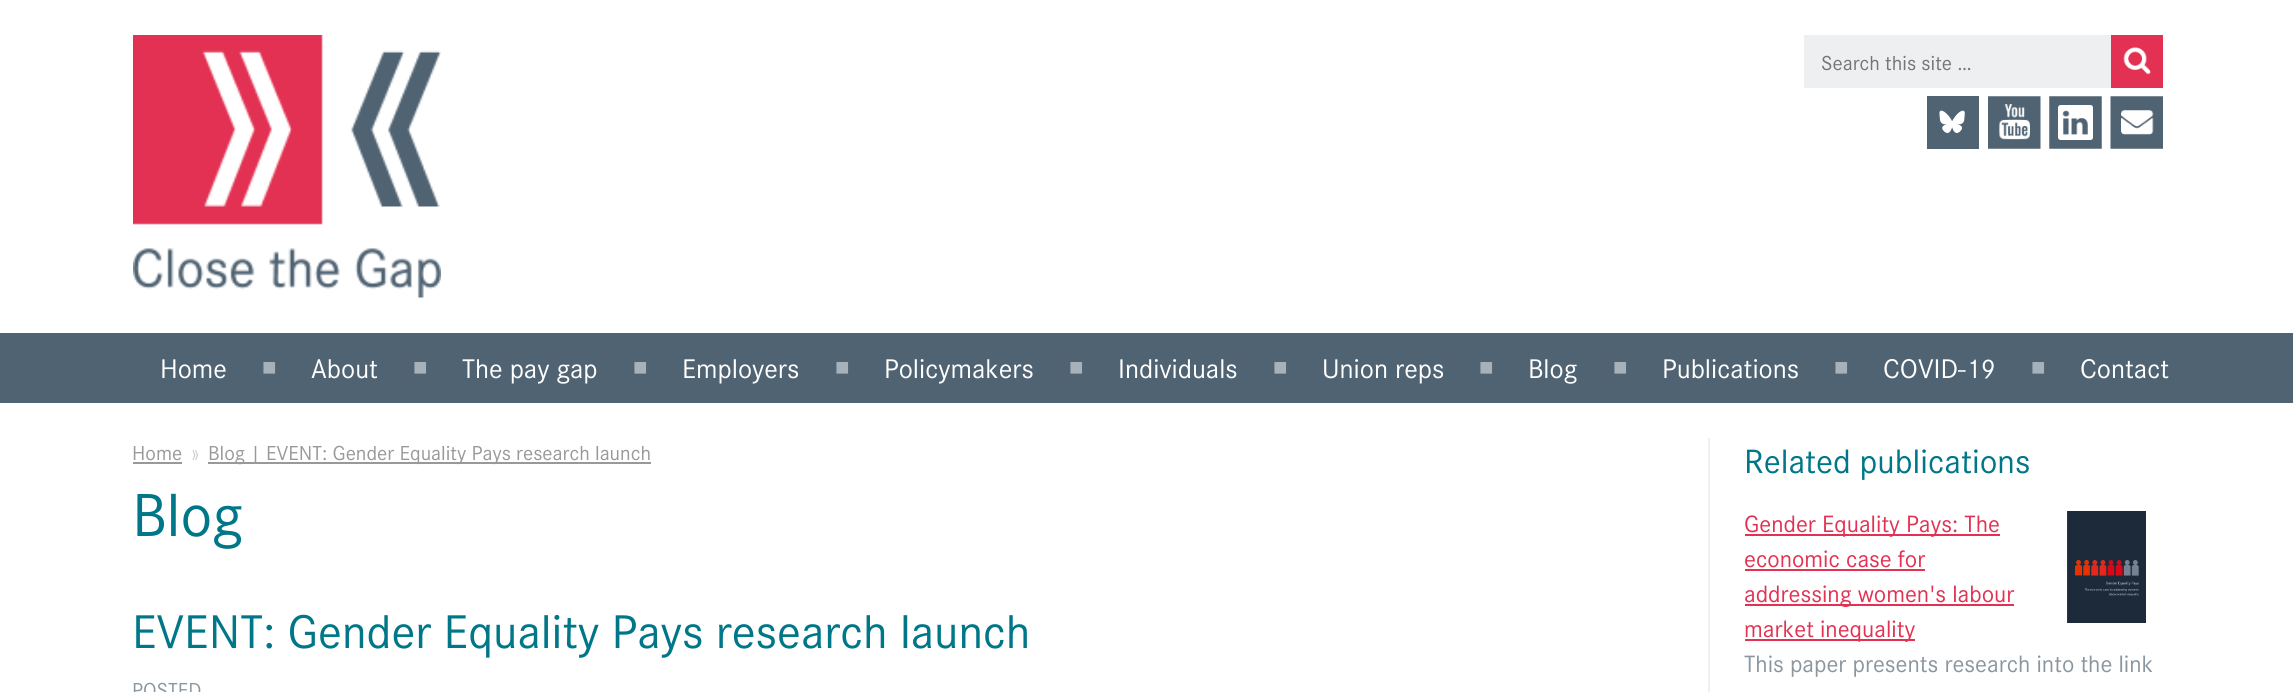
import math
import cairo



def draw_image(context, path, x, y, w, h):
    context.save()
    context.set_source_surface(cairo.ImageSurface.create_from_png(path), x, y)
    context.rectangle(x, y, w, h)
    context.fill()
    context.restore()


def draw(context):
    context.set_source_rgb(1, 1, 1)
    context.paint()
    draw_image(context, "images/1.png", 133, 35, 308, 263)
    context.set_source_rgb(237 / 255, 239 / 255, 241 / 255)
    context.rectangle(1804, 35, 307, 53)
    context.fill()
    context.set_source_rgb(226 / 255, 49 / 255, 82 / 255)
    context.rectangle(2111, 35, 52, 53)
    context.fill()
    draw_image(context, "images/2.png", 2123, 47, 28, 28)
    context.set_source_rgb(80 / 255, 99 / 255, 115 / 255)
    context.rectangle(1927, 96, 52, 53)
    context.fill()
    draw_image(context, "images/3.png", 1939, 110, 26, 23)
    draw_image(context, "images/4.png", 1988, 96, 53, 53)
    draw_image(context, "images/5.png", 2049, 96, 53, 53)
    draw_image(context, "images/6.png", 2110, 96, 53, 53)
    context.rectangle(0, 333, 2293, 70)
    context.fill()
    context.set_source_rgb(237 / 255, 239 / 255, 241 / 255)
    context.rectangle(1708, 438, 2, 254)
    context.fill()
    context.set_source_rgb(153 / 255, 153 / 255, 153 / 255)
    context.rectangle(133, 462, 49, 2)
    context.fill()
    context.rectangle(208, 462, 443, 2)
    context.fill()
    context.set_source_rgb(226 / 255, 49 / 255, 82 / 255)
    context.rectangle(1745, 534, 255, 2)
    context.fill()
    context.rectangle(1745, 569, 180, 2)
    context.fill()
    context.rectangle(1745, 604, 269, 2)
    context.fill()
    context.rectangle(1745, 639, 170, 2)
    context.fill()
    draw_image(context, "images/7.png", 2067, 511, 79, 112)
    context.select_font_face("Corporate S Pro")
    context.set_font_size(21)
    context.set_source_rgb(117 / 255, 117 / 255, 117 / 255)
    context.move_to(1821, 70)
    context.show_text("Search this site …")
    context.set_font_size(28)
    context.set_source_rgb(1, 1, 1)
    context.move_to(160, 378)
    context.show_text("Home")
    context.select_font_face("Liberation Sans")
    context.set_font_size(24)
    context.set_source_rgb(167 / 255, 177 / 255, 185 / 255)
    context.move_to(262, 375)
    context.show_text("■")
    context.select_font_face("Corporate S Pro")
    context.set_font_size(28)
    context.set_source_rgb(1, 1, 1)
    context.move_to(311, 378)
    context.show_text("About")
    context.select_font_face("Liberation Sans")
    context.set_font_size(24)
    context.set_source_rgb(167 / 255, 177 / 255, 185 / 255)
    context.move_to(413, 375)
    context.show_text("■")
    context.select_font_face("Corporate S Pro")
    context.set_font_size(28)
    context.set_source_rgb(1, 1, 1)
    context.move_to(462, 378)
    context.show_text("The pay gap")
    context.select_font_face("Liberation Sans")
    context.set_font_size(24)
    context.set_source_rgb(167 / 255, 177 / 255, 185 / 255)
    context.move_to(633, 375)
    context.show_text("■")
    context.select_font_face("Corporate S Pro")
    context.set_font_size(28)
    context.set_source_rgb(1, 1, 1)
    context.move_to(682, 378)
    context.show_text("Employers")
    context.select_font_face("Liberation Sans")
    context.set_font_size(24)
    context.set_source_rgb(167 / 255, 177 / 255, 185 / 255)
    context.move_to(835, 375)
    context.show_text("■")
    context.select_font_face("Corporate S Pro")
    context.set_font_size(28)
    context.set_source_rgb(1, 1, 1)
    context.move_to(884, 378)
    context.show_text("Policymakers")
    context.select_font_face("Liberation Sans")
    context.set_font_size(24)
    context.set_source_rgb(167 / 255, 177 / 255, 185 / 255)
    context.move_to(1069, 375)
    context.show_text("■")
    context.select_font_face("Corporate S Pro")
    context.set_font_size(28)
    context.set_source_rgb(1, 1, 1)
    context.move_to(1118, 378)
    context.show_text("Individuals")
    context.select_font_face("Liberation Sans")
    context.set_font_size(24)
    context.set_source_rgb(167 / 255, 177 / 255, 185 / 255)
    context.move_to(1273, 375)
    context.show_text("■")
    context.select_font_face("Corporate S Pro")
    context.set_font_size(28)
    context.set_source_rgb(1, 1, 1)
    context.move_to(1322, 378)
    context.show_text("Union reps")
    context.select_font_face("Liberation Sans")
    context.set_font_size(24)
    context.set_source_rgb(167 / 255, 177 / 255, 185 / 255)
    context.move_to(1479, 375)
    context.show_text("■")
    context.select_font_face("Corporate S Pro")
    context.set_font_size(28)
    context.set_source_rgb(1, 1, 1)
    context.move_to(1528, 378)
    context.show_text("Blog")
    context.select_font_face("Liberation Sans")
    context.set_font_size(24)
    context.set_source_rgb(167 / 255, 177 / 255, 185 / 255)
    context.move_to(1613, 375)
    context.show_text("■")
    context.select_font_face("Corporate S Pro")
    context.set_font_size(28)
    context.set_source_rgb(1, 1, 1)
    context.move_to(1662, 378)
    context.show_text("Publications")
    context.select_font_face("Liberation Sans")
    context.set_font_size(24)
    context.set_source_rgb(167 / 255, 177 / 255, 185 / 255)
    context.move_to(1834, 375)
    context.show_text("■")
    context.select_font_face("Corporate S Pro")
    context.set_font_size(28)
    context.set_source_rgb(1, 1, 1)
    context.move_to(1883, 378)
    context.show_text("COVID-19")
    context.select_font_face("Liberation Sans")
    context.set_font_size(24)
    context.set_source_rgb(167 / 255, 177 / 255, 185 / 255)
    context.move_to(2031, 375)
    context.show_text("■")
    context.select_font_face("Corporate S Pro")
    context.set_font_size(28)
    context.set_source_rgb(1, 1, 1)
    context.move_to(2080, 378)
    context.show_text("Contact")
    context.set_font_size(21)
    context.set_source_rgb(153 / 255, 153 / 255, 153 / 255)
    context.move_to(132, 460)
    context.show_text("Home")
    context.set_source_rgb(204 / 255, 204 / 255, 204 / 255)
    context.move_to(191, 460)
    context.show_text("»")
    context.set_source_rgb(153 / 255, 153 / 255, 153 / 255)
    context.move_to(208, 460)
    context.show_text("Blog | EVENT: Gender Equality Pays research launch")
    context.set_font_size(63)
    context.set_source_rgb(0, 119 / 255, 137 / 255)
    context.move_to(132, 536)
    context.show_text("Blog")
    context.set_font_size(49)
    context.move_to(132, 648)
    context.show_text("EVENT: Gender Equality Pays research launch")
    context.set_font_size(21)
    context.set_source_rgb(138 / 255, 150 / 255, 159 / 255)
    context.move_to(132, 697)
    context.show_text("POSTED")
    context.set_font_size(35)
    context.set_source_rgb(0, 119 / 255, 137 / 255)
    context.move_to(1744, 473)
    context.show_text("Related publications")
    context.set_font_size(24.5)
    context.set_source_rgb(226 / 255, 49 / 255, 82 / 255)
    context.move_to(1744, 532)
    context.show_text("Gender Equality Pays: The")
    context.move_to(1744, 567)
    context.show_text("economic case for")
    context.move_to(1744, 602)
    context.show_text("addressing women's labour")
    context.move_to(1744, 637)
    context.show_text("market inequality")
    context.set_source_rgb(138 / 255, 150 / 255, 159 / 255)
    context.move_to(1744, 672)
    context.show_text("This paper presents research into the link")


surface = cairo.ImageSurface(cairo.Format.RGB24, 2293, 692)
context = cairo.Context(surface)
options = cairo.FontOptions()
options.set_hint_metrics(cairo.HintMetrics.OFF)
options.set_hint_style(cairo.HintStyle.NONE)
context.set_font_options(options)
context.set_miter_limit(4)
draw(context)
surface.write_to_png("out.png")
